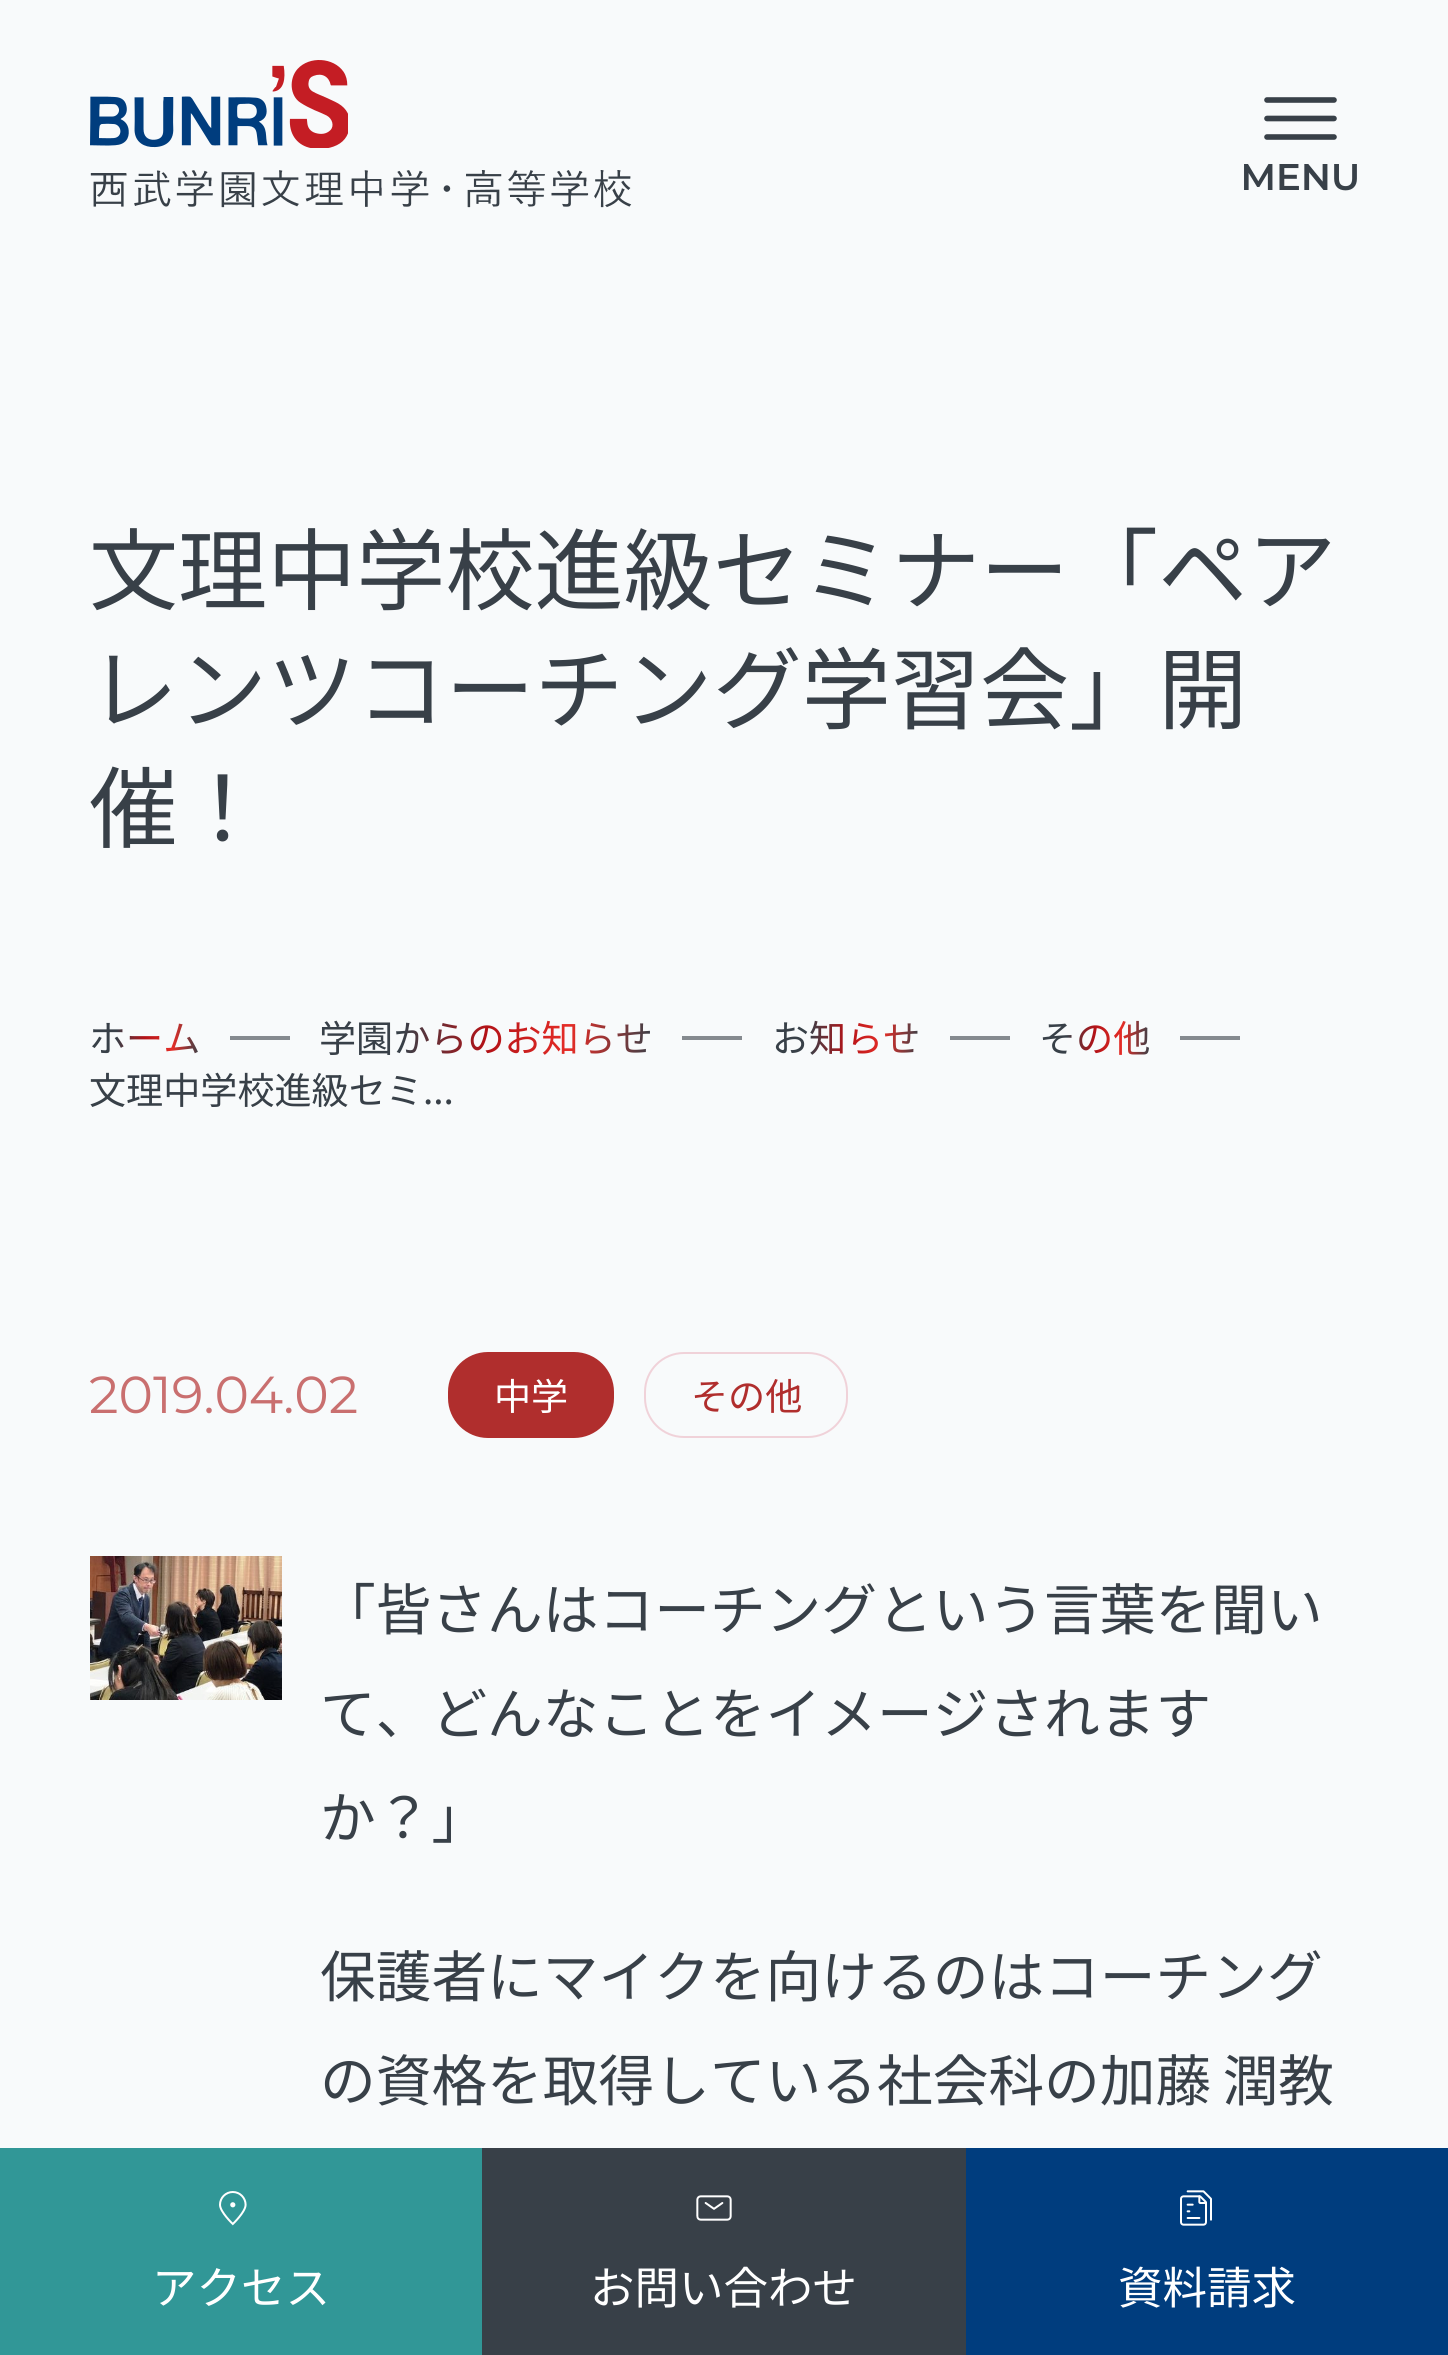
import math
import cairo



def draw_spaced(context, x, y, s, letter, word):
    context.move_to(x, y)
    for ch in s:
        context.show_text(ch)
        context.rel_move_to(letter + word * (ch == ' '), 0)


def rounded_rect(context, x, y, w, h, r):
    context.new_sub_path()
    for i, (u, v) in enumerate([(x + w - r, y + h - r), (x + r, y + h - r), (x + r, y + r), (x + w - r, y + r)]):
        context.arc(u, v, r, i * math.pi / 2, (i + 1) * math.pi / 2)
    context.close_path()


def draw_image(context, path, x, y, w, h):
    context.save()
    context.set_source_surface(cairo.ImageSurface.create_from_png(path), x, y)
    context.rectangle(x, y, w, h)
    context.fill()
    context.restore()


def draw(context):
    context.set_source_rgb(248 / 255, 250 / 255, 251 / 255)
    context.paint()
    draw_image(context, "images/1.png", 90, 60, 258, 88)
    draw_image(context, "images/2.png", 90, 170, 542, 38)
    context.new_path()
    context.move_to(1267, 100)
    context.line_to(1334, 100)
    context.move_to(1267, 118.5)
    context.line_to(1334, 118.5)
    context.move_to(1267, 137)
    context.line_to(1334, 137)
    context.set_source_rgb(56 / 255, 64 / 255, 72 / 255)
    context.set_line_width(5.6)
    context.set_line_cap(cairo.LineCap.ROUND)
    context.set_line_join(cairo.LineJoin.ROUND)
    context.stroke()
    draw_image(context, "images/3.png", 1244, 164, 113, 27)
    context.set_source_rgb(133 / 255, 138 / 255, 143 / 255)
    context.rectangle(230, 1036, 60, 4)
    context.fill()
    context.rectangle(682, 1036, 60, 4)
    context.fill()
    context.rectangle(950, 1036, 60, 4)
    context.fill()
    context.rectangle(1180, 1036, 60, 4)
    context.fill()
    context.set_source_rgb(176 / 255, 46 / 255, 45 / 255)
    rounded_rect(context, 449, 1353, 164, 84, 39)
    context.fill_preserve()
    context.set_line_width(2)
    context.set_line_cap(cairo.LineCap.BUTT)
    context.set_line_join(cairo.LineJoin.MITER)
    context.stroke()
    rounded_rect(context, 645, 1353, 202, 84, 39)
    context.set_source_rgb(240 / 255, 210 / 255, 217 / 255)
    context.stroke()
    draw_image(context, "images/4.png", 90, 1556, 192, 144)
    context.set_source_rgb(49 / 255, 151 / 255, 151 / 255)
    context.rectangle(0, 2148, 482, 207)
    context.fill()
    draw_image(context, "images/5.png", 219, 2191, 28, 35)
    context.set_source_rgb(56 / 255, 64 / 255, 72 / 255)
    context.rectangle(482, 2148, 484, 207)
    context.fill()
    draw_image(context, "images/6.png", 696, 2195, 36, 26)
    context.set_source_rgb(0, 61 / 255, 126 / 255)
    context.rectangle(966, 2148, 482, 207)
    context.fill()
    draw_image(context, "images/7.png", 1180, 2190, 32, 36)
    context.select_font_face("Noto Sans JP")
    context.set_font_size(89.1)
    context.set_source_rgb(56 / 255, 64 / 255, 72 / 255)
    context.move_to(89, 603)
    context.show_text("文理中学校進級セミナー「ペア")
    context.move_to(89, 722)
    context.show_text("レンツコーチング学習会」開")
    context.move_to(89, 841)
    context.show_text("催！")
    context.set_font_size(37.1)
    gradient = cairo.LinearGradient(89, 1036, 200, 1036)
    gradient.add_color_stop_rgba(0.25, 56 / 255, 64 / 255, 72 / 255, 1)
    gradient.add_color_stop_rgba(0.5, 179 / 255, 18 / 255, 23 / 255, 1)
    gradient.add_color_stop_rgba(0.75, 229 / 255, 45 / 255, 39 / 255, 1)
    gradient.add_color_stop_rgba(1, 56 / 255, 64 / 255, 72 / 255, 1)
    context.set_source(gradient)
    context.move_to(89, 1052)
    context.show_text("ホーム")
    gradient = cairo.LinearGradient(319, 1036, 653, 1036)
    gradient.add_color_stop_rgba(0.25, 56 / 255, 64 / 255, 72 / 255, 1)
    gradient.add_color_stop_rgba(0.5, 179 / 255, 18 / 255, 23 / 255, 1)
    gradient.add_color_stop_rgba(0.75, 229 / 255, 45 / 255, 39 / 255, 1)
    gradient.add_color_stop_rgba(1, 56 / 255, 64 / 255, 72 / 255, 1)
    context.set_source(gradient)
    context.move_to(319, 1052)
    context.show_text("学園からのお知らせ")
    gradient = cairo.LinearGradient(772, 1036, 920, 1036)
    gradient.add_color_stop_rgba(0.25, 56 / 255, 64 / 255, 72 / 255, 1)
    gradient.add_color_stop_rgba(0.5, 179 / 255, 18 / 255, 23 / 255, 1)
    gradient.add_color_stop_rgba(0.75, 229 / 255, 45 / 255, 39 / 255, 1)
    gradient.add_color_stop_rgba(1, 56 / 255, 64 / 255, 72 / 255, 1)
    context.set_source(gradient)
    context.move_to(772, 1052)
    context.show_text("お知らせ")
    gradient = cairo.LinearGradient(1039, 1036, 1150, 1036)
    gradient.add_color_stop_rgba(0.25, 56 / 255, 64 / 255, 72 / 255, 1)
    gradient.add_color_stop_rgba(0.5, 179 / 255, 18 / 255, 23 / 255, 1)
    gradient.add_color_stop_rgba(0.75, 229 / 255, 45 / 255, 39 / 255, 1)
    gradient.add_color_stop_rgba(1, 56 / 255, 64 / 255, 72 / 255, 1)
    context.set_source(gradient)
    context.move_to(1039, 1052)
    context.show_text("その他")
    context.set_source_rgb(56 / 255, 64 / 255, 72 / 255)
    context.move_to(89, 1104)
    context.show_text("文理中学校進級セミ...")
    context.select_font_face("Montserrat")
    context.set_font_size(52)
    context.set_source_rgb(201 / 255, 111 / 255, 111 / 255)
    context.move_to(89, 1413)
    context.show_text("2019.04.02")
    context.select_font_face("Noto Sans JP")
    context.set_font_size(37.1)
    context.set_source_rgb(1, 1, 1)
    context.move_to(494, 1410)
    context.show_text("中学")
    context.set_source_rgb(176 / 255, 46 / 255, 45 / 255)
    context.move_to(691, 1410)
    context.show_text("その他")
    context.set_font_size(55.7)
    context.set_source_rgb(56 / 255, 64 / 255, 72 / 255)
    context.move_to(320, 1630)
    context.show_text("「皆さんはコーチングという言葉を聞い")
    context.move_to(320, 1734)
    context.show_text("て、どんなことをイメージされます")
    context.move_to(320, 1838)
    context.show_text("か？」")
    context.move_to(320, 1997)
    context.show_text("保護者にマイクを向けるのはコーチング")
    draw_spaced(context, 320, 2101, "の資格を取得している社会科の加藤 潤教", 0, -1)
    context.set_font_size(44.5)
    context.set_source_rgb(1, 1, 1)
    context.move_to(152, 2304)
    context.show_text("アクセス")
    context.move_to(590, 2304)
    context.show_text("お問い合わせ")
    context.move_to(1118, 2304)
    context.show_text("資料請求")


surface = cairo.ImageSurface(cairo.Format.RGB24, 1448, 2355)
context = cairo.Context(surface)
options = cairo.FontOptions()
options.set_hint_metrics(cairo.HintMetrics.OFF)
options.set_hint_style(cairo.HintStyle.NONE)
context.set_font_options(options)
context.set_miter_limit(4)
draw(context)
surface.write_to_png("out.png")
